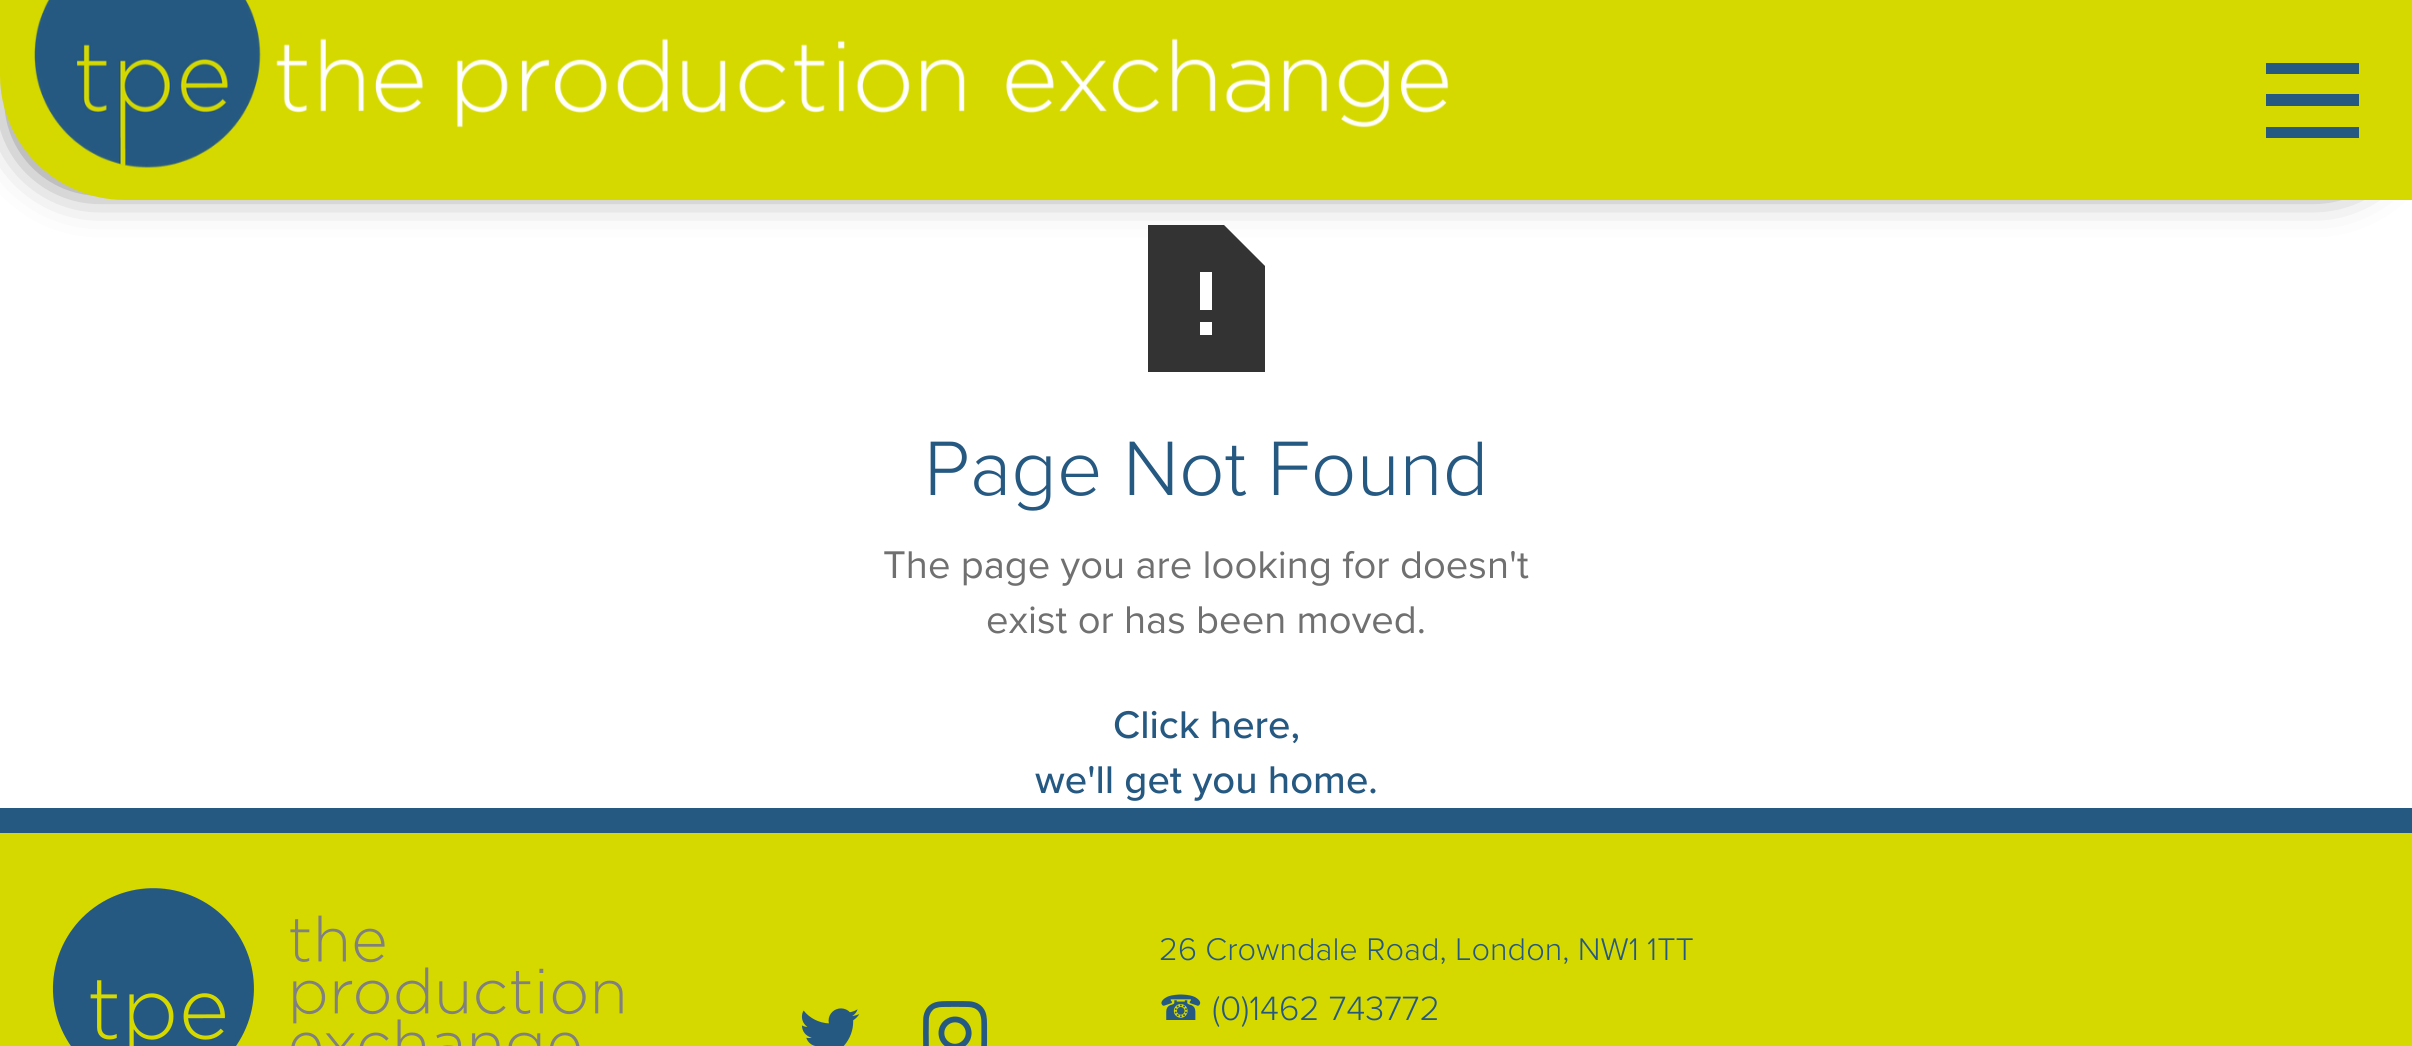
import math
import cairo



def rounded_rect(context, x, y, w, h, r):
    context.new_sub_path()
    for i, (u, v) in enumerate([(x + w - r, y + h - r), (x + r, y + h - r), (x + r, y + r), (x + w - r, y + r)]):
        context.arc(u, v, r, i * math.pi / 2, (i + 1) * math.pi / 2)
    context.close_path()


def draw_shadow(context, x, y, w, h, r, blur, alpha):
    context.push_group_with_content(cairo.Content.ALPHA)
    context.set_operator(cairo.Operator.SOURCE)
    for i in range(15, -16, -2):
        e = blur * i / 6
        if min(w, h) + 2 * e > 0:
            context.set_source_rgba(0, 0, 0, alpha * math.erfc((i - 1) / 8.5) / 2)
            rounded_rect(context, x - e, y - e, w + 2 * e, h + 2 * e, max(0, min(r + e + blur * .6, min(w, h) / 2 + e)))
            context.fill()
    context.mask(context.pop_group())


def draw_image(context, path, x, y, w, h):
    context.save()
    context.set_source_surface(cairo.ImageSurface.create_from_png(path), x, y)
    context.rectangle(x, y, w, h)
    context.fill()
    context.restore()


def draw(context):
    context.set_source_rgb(1, 1, 1)
    context.paint()
    context.set_source_rgb(51 / 255, 51 / 255, 51 / 255)
    context.set_fill_rule(cairo.FillRule.EVEN_ODD)
    context.new_path()
    context.move_to(1148, 225)
    context.line_to(1224, 225)
    context.line_to(1265, 266)
    context.line_to(1265, 372)
    context.line_to(1148, 372)
    context.close_path()
    context.move_to(1200, 272)
    context.line_to(1212, 272)
    context.line_to(1212, 310)
    context.line_to(1200, 310)
    context.close_path()
    context.move_to(1200, 322)
    context.line_to(1212, 322)
    context.line_to(1212, 335)
    context.line_to(1200, 335)
    context.close_path()
    context.fill()
    context.set_source_rgb(0, 0, 0)
    draw_shadow(context, 25, 25, 2363, 150, 100, 25, 1)
    context.set_source_rgb(213 / 255, 217 / 255, 0)
    context.new_path()
    context.move_to(0, 0)
    context.line_to(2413, 0)
    context.line_to(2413, 200)
    context.line_to(125, 200)
    context.curve_to(56, 200, 0, 144, 0, 75)
    context.close_path()
    context.fill()
    draw_image(context, "images/1.png", 34, 0, 1415, 168)
    context.set_source_rgb(38 / 255, 89 / 255, 130 / 255)
    context.rectangle(2266, 63, 93, 11)
    context.fill()
    context.rectangle(2266, 94, 93, 12)
    context.fill()
    context.rectangle(2266, 127, 93, 11)
    context.fill()
    context.set_source_rgb(213 / 255, 217 / 255, 0)
    context.rectangle(0, 833, 2412, 213)
    context.fill()
    context.set_source_rgb(38 / 255, 89 / 255, 130 / 255)
    context.rectangle(0, 808, 2412, 25)
    context.fill()
    draw_image(context, "images/2.png", 52, 888, 571, 158)
    draw_image(context, "images/3.png", 801, 1008, 59, 38)
    draw_image(context, "images/4.png", 923, 1001, 65, 45)
    context.select_font_face("Proxima Nova Light")
    context.set_font_size(80)
    context.move_to(924, 495)
    context.show_text("Page Not Found")
    context.select_font_face("Proxima Nova")
    context.set_font_size(40)
    context.set_source_rgb(112 / 255, 112 / 255, 112 / 255)
    context.move_to(883, 578)
    context.show_text("The page you are looking for doesn't")
    context.move_to(986, 633)
    context.show_text("exist or has been moved.")
    context.select_font_face("Proxima Nova Medium")
    context.set_source_rgb(38 / 255, 89 / 255, 130 / 255)
    context.move_to(1113, 738)
    context.show_text("Click here,")
    context.move_to(1035, 793)
    context.show_text("we'll get you home.")
    context.select_font_face("Proxima Nova Light")
    context.set_font_size(32.5)
    context.move_to(1159, 960)
    context.show_text("26 Crowndale Road, London, NW1 1TT")
    context.select_font_face("DejaVu Sans")
    context.set_font_size(35)
    context.move_to(1159, 1020)
    context.show_text("☎")
    context.select_font_face("Proxima Nova Light")
    context.move_to(1212, 1020)
    context.show_text("(0)1462 743772")


surface = cairo.ImageSurface(cairo.Format.RGB24, 2412, 1046)
context = cairo.Context(surface)
options = cairo.FontOptions()
options.set_hint_metrics(cairo.HintMetrics.OFF)
options.set_hint_style(cairo.HintStyle.NONE)
context.set_font_options(options)
context.set_miter_limit(4)
draw(context)
surface.write_to_png("out.png")
